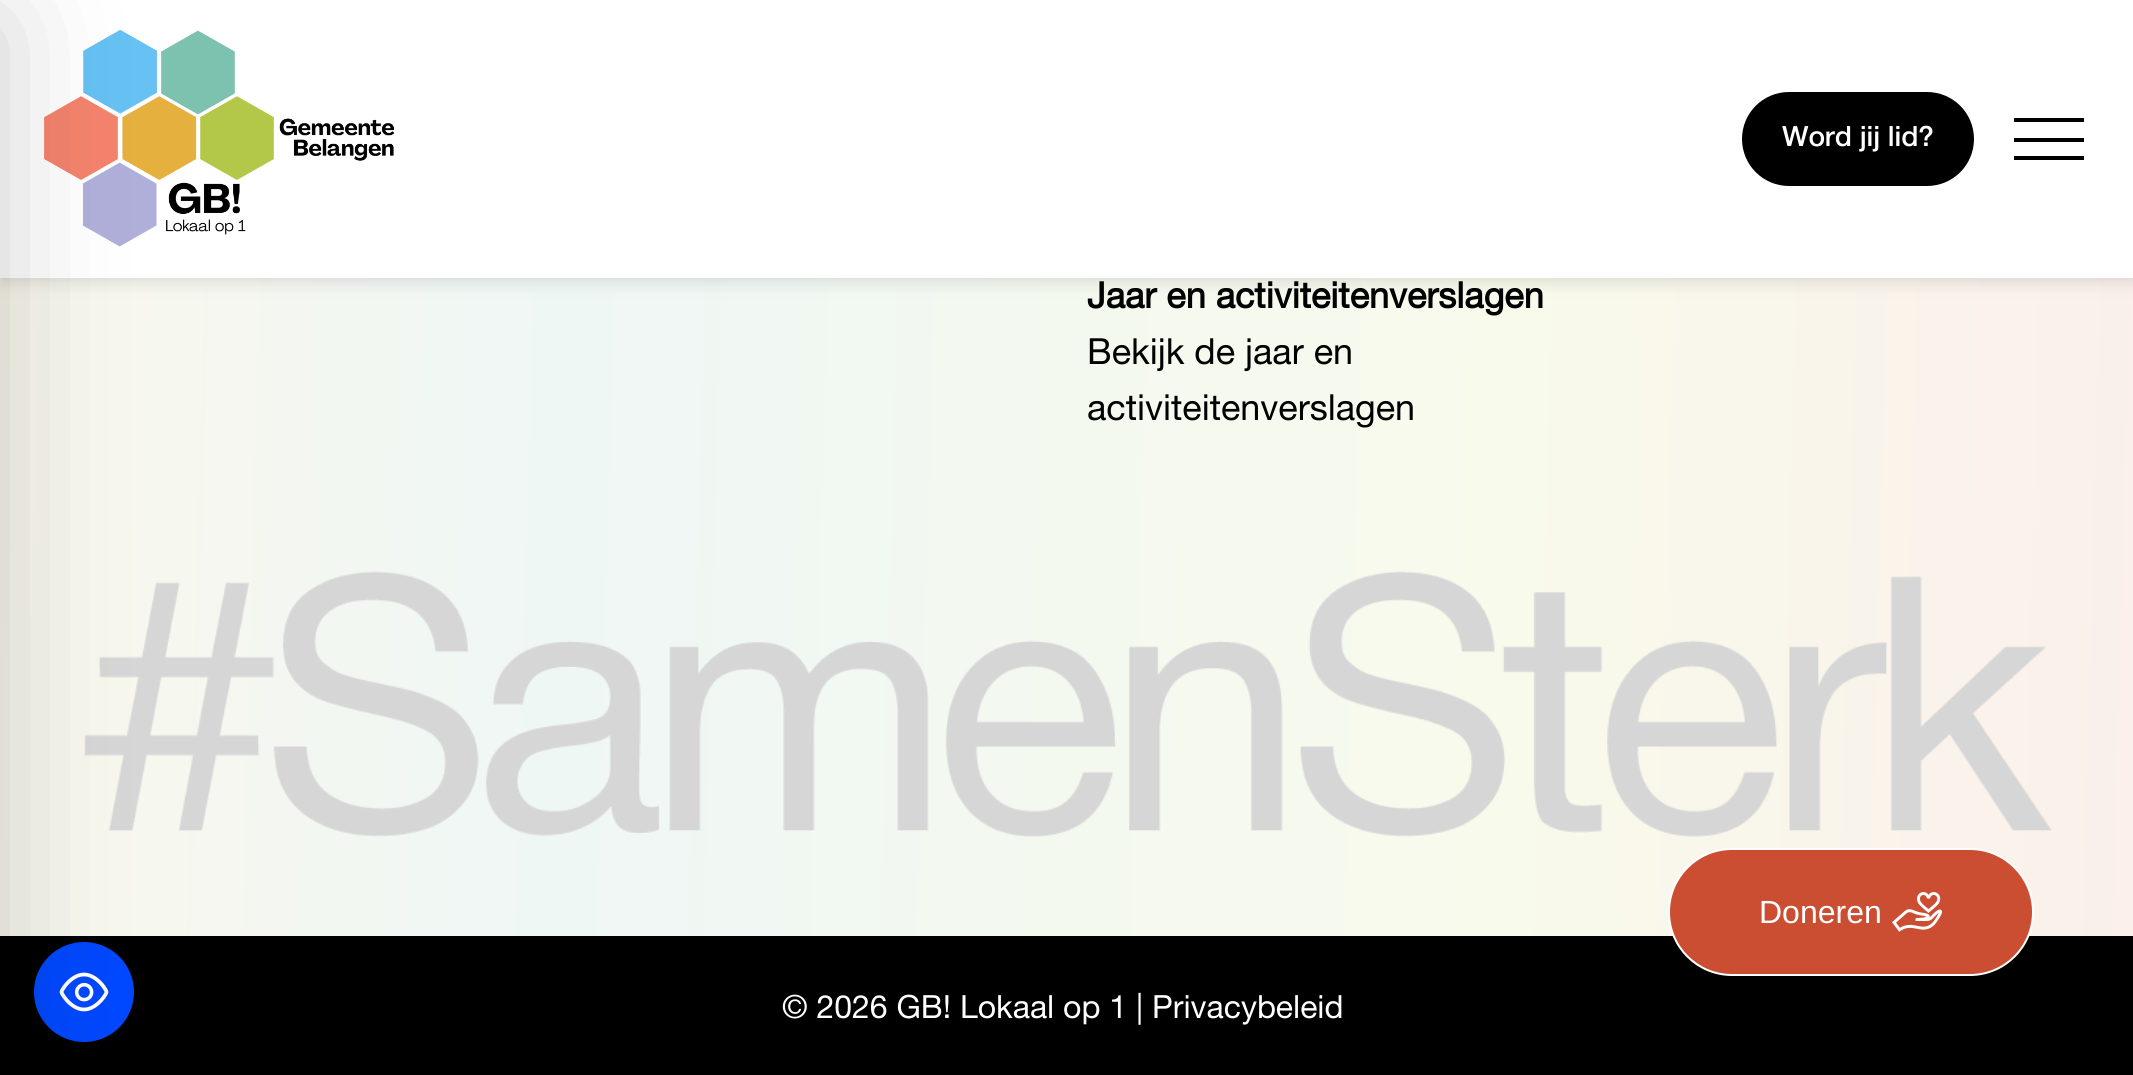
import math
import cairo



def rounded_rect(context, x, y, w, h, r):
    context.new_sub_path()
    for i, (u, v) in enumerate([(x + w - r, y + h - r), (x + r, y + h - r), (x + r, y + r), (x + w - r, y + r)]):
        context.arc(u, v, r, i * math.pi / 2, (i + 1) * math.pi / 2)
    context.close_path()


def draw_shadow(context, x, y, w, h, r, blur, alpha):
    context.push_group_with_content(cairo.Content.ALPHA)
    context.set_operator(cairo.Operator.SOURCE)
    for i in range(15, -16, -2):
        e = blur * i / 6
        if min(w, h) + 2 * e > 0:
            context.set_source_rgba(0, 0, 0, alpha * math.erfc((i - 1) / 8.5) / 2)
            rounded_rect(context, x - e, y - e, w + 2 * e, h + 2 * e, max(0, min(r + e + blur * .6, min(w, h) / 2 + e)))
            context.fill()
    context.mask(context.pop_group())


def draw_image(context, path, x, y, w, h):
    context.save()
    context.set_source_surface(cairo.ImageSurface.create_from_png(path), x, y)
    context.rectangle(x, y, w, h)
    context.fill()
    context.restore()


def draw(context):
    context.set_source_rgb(1, 1, 1)
    context.paint()
    gradient = cairo.LinearGradient(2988, 77, -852, -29)
    gradient.add_color_stop_rgba(0, 238 / 255, 248 / 255, 254 / 255, 1)
    gradient.add_color_stop_rgba(0.19, 251 / 255, 238 / 255, 235 / 255, 1)
    gradient.add_color_stop_rgba(0.38, 248 / 255, 250 / 255, 235 / 255, 1)
    gradient.add_color_stop_rgba(0.63, 239 / 255, 247 / 255, 245 / 255, 1)
    gradient.add_color_stop_rgba(0.83, 253 / 255, 247 / 255, 233 / 255, 1)
    gradient.add_color_stop_rgba(1, 246 / 255, 246 / 255, 251 / 255, 1)
    context.set_source(gradient)
    context.new_path()
    context.move_to(-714, -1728)
    context.line_to(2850, -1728)
    context.curve_to(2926, -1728, 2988, -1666, 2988, -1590)
    context.line_to(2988, 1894)
    context.curve_to(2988, 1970, 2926, 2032, 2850, 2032)
    context.line_to(-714, 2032)
    context.curve_to(-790, 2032, -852, 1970, -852, 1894)
    context.line_to(-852, -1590)
    context.curve_to(-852, -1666, -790, -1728, -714, -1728)
    context.close_path()
    context.fill()
    context.set_source_rgb(99 / 255, 99 / 255, 99 / 255)
    draw_shadow(context, 0, -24, 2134, 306, 0, 8, 0.2)
    context.set_source_rgb(1, 1, 1)
    context.rectangle(0, 0, 2133, 278)
    context.fill()
    draw_image(context, "images/1.png", 44, 30, 351, 217)
    draw_image(context, "images/2.png", 84, 571, 1968, 266)
    context.set_source_rgb(0, 0, 0)
    context.rectangle(0, 936, 2133, 139)
    context.fill()
    context.set_source_rgb(0, 72 / 255, 254 / 255)
    context.arc(84, 992, 50, 0, 2 * math.pi)
    context.fill()
    draw_image(context, "images/4.png", 59, 972, 50, 40)
    context.set_source_rgb(0, 0, 0)
    draw_shadow(context, -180, 20, 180, 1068, 0, 60, 0.2)
    context.set_source_rgb(0, 0, 0)
    rounded_rect(context, 1742, 92, 232, 94, 47)
    context.fill()
    context.rectangle(2014, 118, 70, 4)
    context.fill()
    context.rectangle(2014, 138, 70, 4)
    context.fill()
    context.rectangle(2014, 156, 70, 4)
    context.fill()
    context.set_source_rgb(203 / 255, 78 / 255, 51 / 255)
    rounded_rect(context, 1669, 849, 364, 126, 63)
    context.fill_preserve()
    context.set_source_rgb(1, 1, 1)
    context.stroke()
    draw_image(context, "images/3.png", 1892, 892, 50, 40)
    context.select_font_face("Helvetica Neue Medium")
    context.set_font_size(28)
    context.move_to(1782, 146)
    context.show_text("Word jij lid?")
    context.select_font_face("Helvetica Neue", cairo.FontSlant.NORMAL, cairo.FontWeight.BOLD)
    context.set_font_size(36)
    context.set_source_rgb(0, 0, 0)
    context.move_to(1087, 308)
    context.show_text("Jaar en activiteitenverslagen")
    context.select_font_face("Helvetica Neue")
    context.move_to(1087, 364)
    context.show_text("Bekijk de jaar en")
    context.move_to(1087, 420)
    context.show_text("activiteitenverslagen")
    context.select_font_face("Liberation Sans")
    context.set_font_size(32)
    context.set_source_rgb(1, 1, 1)
    context.move_to(1759, 923)
    context.show_text("Doneren")
    context.select_font_face("Helvetica Neue")
    context.move_to(782, 1018)
    context.show_text("© 2026 GB! Lokaal op 1 | Privacybeleid")


surface = cairo.ImageSurface(cairo.Format.RGB24, 2133, 1075)
context = cairo.Context(surface)
options = cairo.FontOptions()
options.set_hint_metrics(cairo.HintMetrics.OFF)
options.set_hint_style(cairo.HintStyle.NONE)
context.set_font_options(options)
context.set_miter_limit(4)
draw(context)
surface.write_to_png("out.png")
